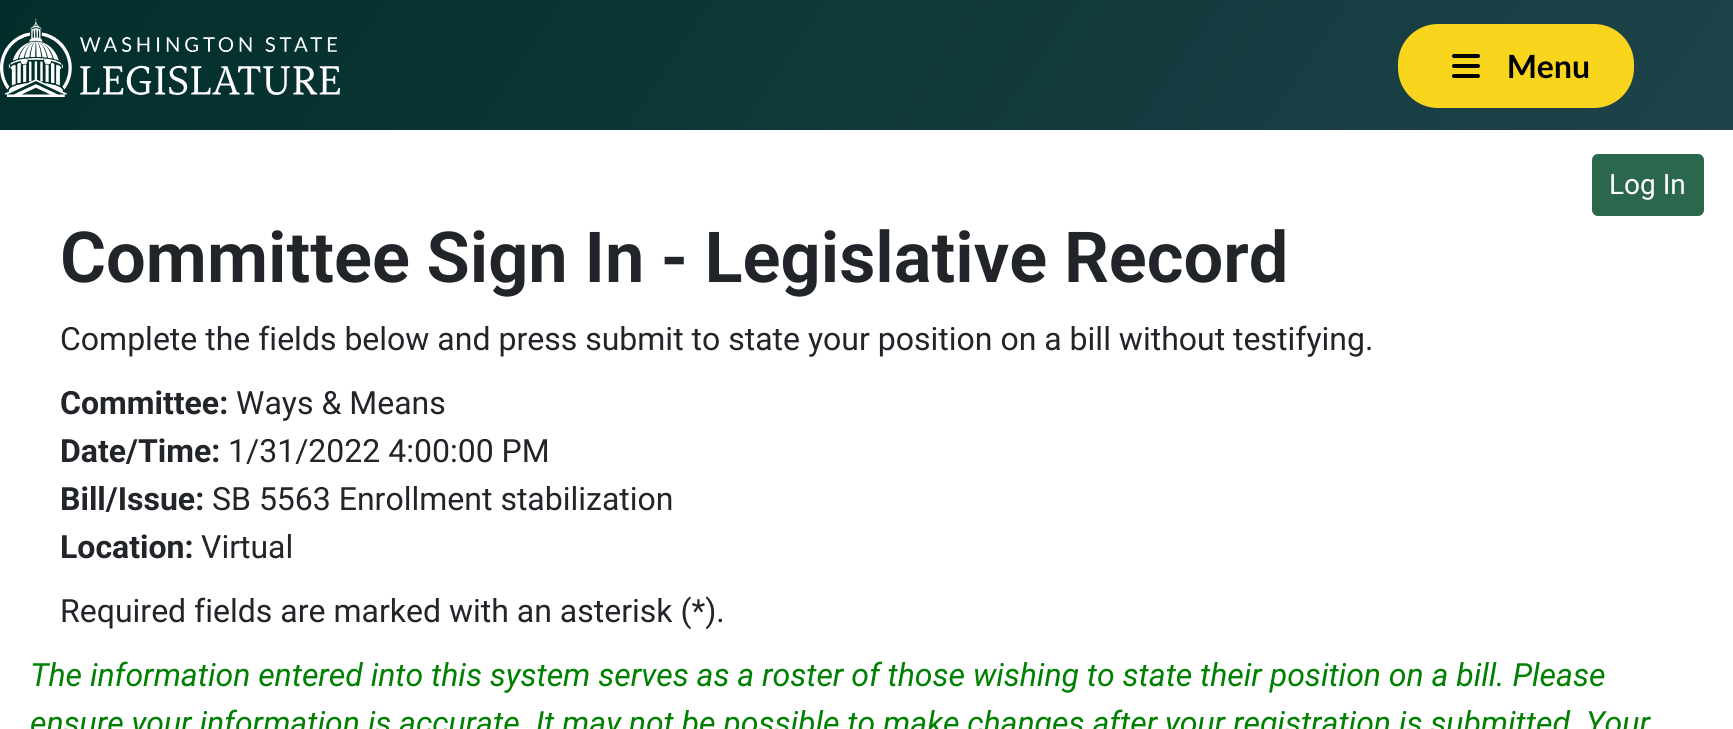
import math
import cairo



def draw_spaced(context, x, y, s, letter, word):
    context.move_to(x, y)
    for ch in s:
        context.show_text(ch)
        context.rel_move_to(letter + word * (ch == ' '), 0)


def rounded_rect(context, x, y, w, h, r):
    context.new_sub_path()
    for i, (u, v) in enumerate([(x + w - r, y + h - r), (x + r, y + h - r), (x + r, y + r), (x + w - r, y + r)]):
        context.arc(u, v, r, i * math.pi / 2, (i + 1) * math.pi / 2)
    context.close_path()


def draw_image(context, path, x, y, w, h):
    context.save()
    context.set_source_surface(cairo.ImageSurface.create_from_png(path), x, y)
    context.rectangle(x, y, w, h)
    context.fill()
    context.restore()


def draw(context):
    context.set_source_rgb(1, 1, 1)
    context.paint()
    gradient = cairo.LinearGradient(1493, 487, 241, -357)
    gradient.add_color_stop_rgba(0, 30 / 255, 67 / 255, 74 / 255, 1)
    gradient.add_color_stop_rgba(1, 1 / 255, 46 / 255, 42 / 255, 1)
    context.set_source(gradient)
    context.rectangle(0, 0, 1733, 130)
    context.fill()
    draw_image(context, "images/1.png", 0, 19, 340, 78)
    context.set_source_rgb(250 / 255, 213 / 255, 29 / 255)
    rounded_rect(context, 1400, 26, 232, 80, 38)
    context.fill_preserve()
    context.set_line_width(4)
    context.stroke()
    draw_image(context, "images/2.png", 1452, 54, 28, 24)
    context.set_source_rgb(43 / 255, 103 / 255, 77 / 255)
    rounded_rect(context, 1593, 155, 110, 60, 5)
    context.fill_preserve()
    context.set_line_width(2)
    context.stroke()
    context.select_font_face("Lato", cairo.FontSlant.NORMAL, cairo.FontWeight.BOLD)
    context.set_font_size(32)
    context.set_source_rgb(0, 0, 0)
    context.move_to(1507, 78)
    context.show_text("Menu")
    context.select_font_face("Roboto")
    context.set_font_size(28)
    context.set_source_rgb(1, 1, 1)
    context.move_to(1609, 194)
    context.show_text("Log In")
    context.select_font_face("Roboto SemiBold")
    context.set_font_size(70.4)
    context.set_source_rgb(33 / 255, 37 / 255, 41 / 255)
    draw_spaced(context, 60, 282, "Committee Sign In - Legislative Record", 0, -0.75)
    context.select_font_face("Roboto")
    context.set_font_size(32)
    context.move_to(60, 350)
    context.show_text("Complete the fields below and press submit to state your position on a bill without testifying.")
    context.select_font_face("Roboto", cairo.FontSlant.NORMAL, cairo.FontWeight.BOLD)
    context.move_to(60, 414)
    context.show_text("Committee:")
    context.select_font_face("Roboto")
    context.move_to(236, 414)
    context.show_text("Ways & Means")
    context.select_font_face("Roboto", cairo.FontSlant.NORMAL, cairo.FontWeight.BOLD)
    context.move_to(60, 462)
    context.show_text("Date/Time:")
    context.select_font_face("Roboto")
    context.move_to(228, 462)
    context.show_text("1/31/2022 4:00:00 PM")
    context.select_font_face("Roboto", cairo.FontSlant.NORMAL, cairo.FontWeight.BOLD)
    context.move_to(60, 510)
    context.show_text("Bill/Issue:")
    context.select_font_face("Roboto")
    context.move_to(212, 510)
    context.show_text("SB 5563 Enrollment stabilization")
    context.select_font_face("Roboto", cairo.FontSlant.NORMAL, cairo.FontWeight.BOLD)
    context.move_to(60, 558)
    context.show_text("Location:")
    context.select_font_face("Roboto")
    context.move_to(201, 558)
    context.show_text("Virtual")
    context.move_to(60, 622)
    context.show_text("Required fields are marked with an asterisk (*).")
    context.select_font_face("Roboto", cairo.FontSlant.ITALIC)
    context.set_source_rgb(0, 128 / 255, 0)
    context.move_to(30, 686)
    context.show_text("The information entered into this system serves as a roster of those wishing to state their position on a bill. Please")
    context.move_to(30, 734)
    context.show_text("ensure your information is accurate. It may not be possible to make changes after your registration is submitted. Your")


surface = cairo.ImageSurface(cairo.Format.RGB24, 1733, 729)
context = cairo.Context(surface)
options = cairo.FontOptions()
options.set_hint_metrics(cairo.HintMetrics.OFF)
options.set_hint_style(cairo.HintStyle.NONE)
context.set_font_options(options)
context.set_miter_limit(4)
draw(context)
surface.write_to_png("out.png")
